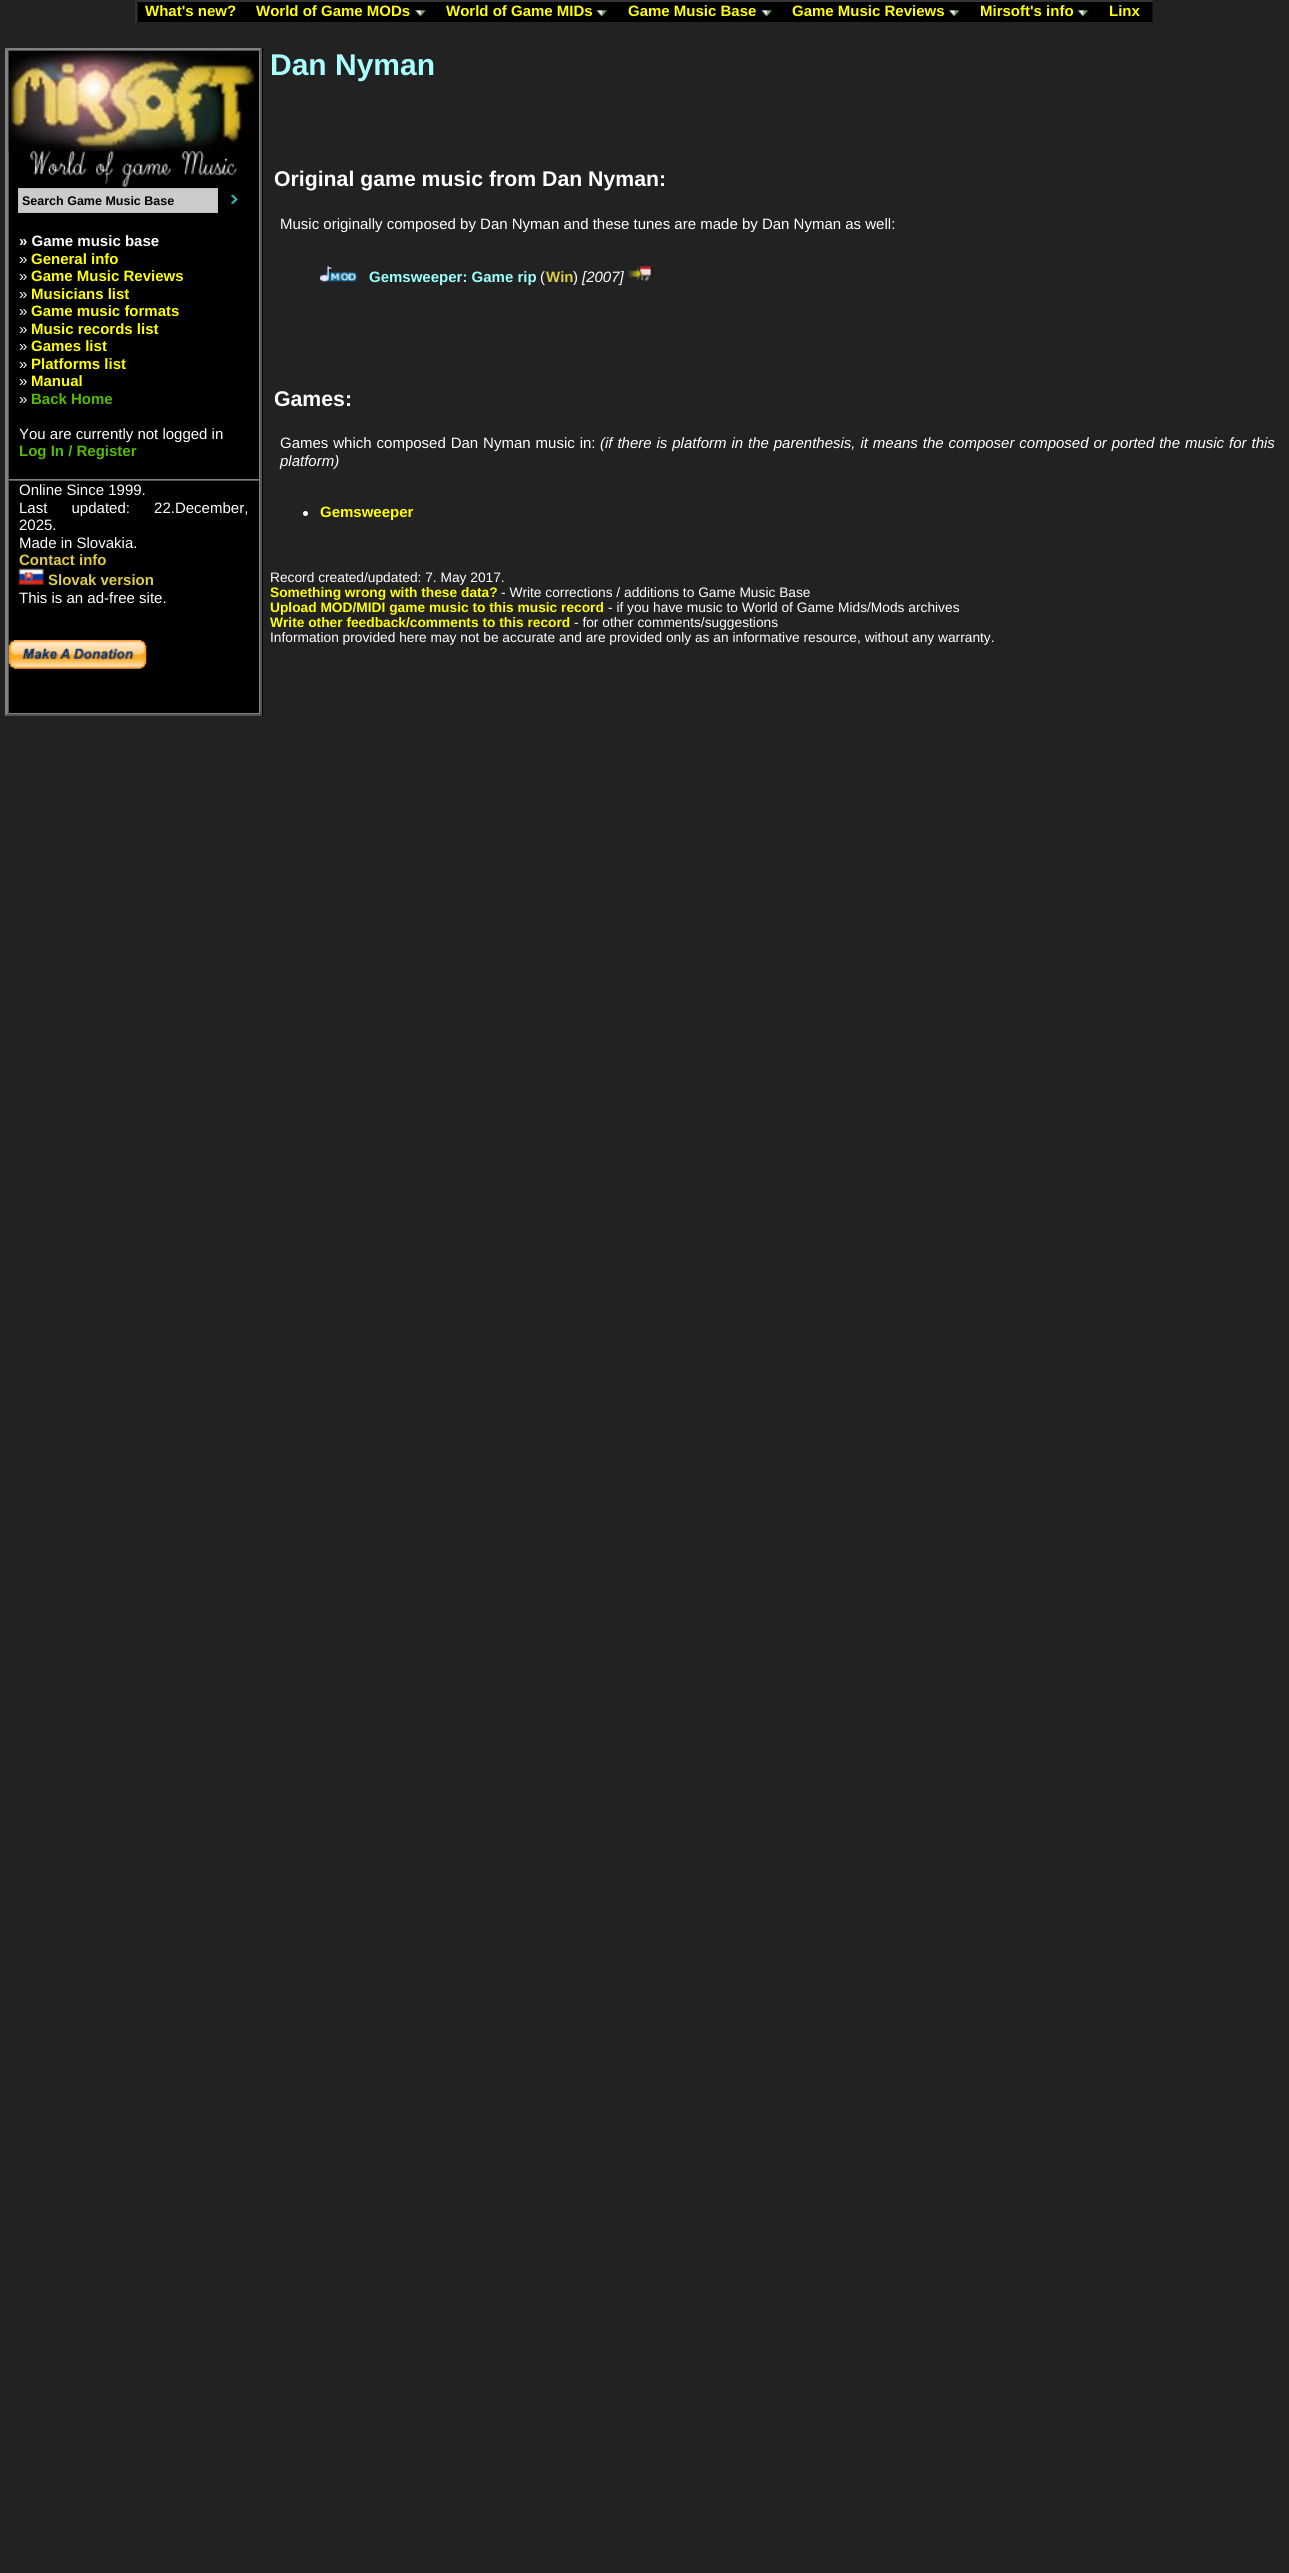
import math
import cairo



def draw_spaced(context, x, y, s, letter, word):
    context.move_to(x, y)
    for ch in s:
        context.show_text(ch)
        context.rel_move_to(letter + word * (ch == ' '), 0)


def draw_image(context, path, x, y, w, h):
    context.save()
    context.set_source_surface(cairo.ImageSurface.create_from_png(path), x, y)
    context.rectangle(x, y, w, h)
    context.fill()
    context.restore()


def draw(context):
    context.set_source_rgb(34 / 255, 34 / 255, 34 / 255)
    context.paint()
    context.set_source_rgb(0, 0, 0)
    context.rectangle(135, 0, 1020, 25)
    context.fill()
    context.set_source_rgb(52 / 255, 52 / 255, 52 / 255)
    context.new_path()
    context.move_to(135, 0)
    context.line_to(1155, 0)
    context.line_to(1152, 2)
    context.line_to(138, 2)
    context.close_path()
    context.fill()
    context.set_source_rgb(35 / 255, 35 / 255, 35 / 255)
    context.new_path()
    context.move_to(1155, 0)
    context.line_to(1155, 25)
    context.line_to(1152.5, 22.5)
    context.line_to(1152.5, 2.5)
    context.close_path()
    context.fill()
    context.new_path()
    context.move_to(1155, 25)
    context.line_to(135, 25)
    context.line_to(138, 22)
    context.line_to(1152, 22)
    context.close_path()
    context.fill()
    context.set_source_rgb(52 / 255, 52 / 255, 52 / 255)
    context.new_path()
    context.move_to(135, 25)
    context.line_to(135, 0)
    context.line_to(137.5, 2.5)
    context.line_to(137.5, 22.5)
    context.close_path()
    context.fill()
    draw_image(context, "images/1.png", 415, 10, 12, 7)
    draw_image(context, "images/2.png", 596, 10, 12, 7)
    draw_image(context, "images/2.png", 761, 10, 12, 7)
    draw_image(context, "images/3.png", 948, 10, 12, 7)
    draw_image(context, "images/4.png", 1077, 10, 12, 7)
    context.set_source_rgb(0, 0, 0)
    context.rectangle(5, 48, 258, 668)
    context.fill()
    context.set_source_rgb(128 / 255, 128 / 255, 128 / 255)
    context.new_path()
    context.move_to(5, 48)
    context.line_to(262, 48)
    context.line_to(260, 50)
    context.line_to(8, 50)
    context.close_path()
    context.fill()
    context.set_source_rgb(85 / 255, 85 / 255, 85 / 255)
    context.new_path()
    context.move_to(262, 48)
    context.line_to(262, 716)
    context.line_to(260, 714)
    context.line_to(260, 50)
    context.close_path()
    context.fill()
    context.new_path()
    context.move_to(262, 716)
    context.line_to(5, 716)
    context.line_to(8, 714)
    context.line_to(260, 714)
    context.close_path()
    context.fill()
    context.set_source_rgb(128 / 255, 128 / 255, 128 / 255)
    context.new_path()
    context.move_to(5, 716)
    context.line_to(5, 48)
    context.line_to(8, 50)
    context.line_to(8, 714)
    context.close_path()
    context.fill()
    context.set_source_rgb(85 / 255, 85 / 255, 85 / 255)
    context.rectangle(8, 50, 252, 1)
    context.fill()
    context.set_source_rgb(128 / 255, 128 / 255, 128 / 255)
    context.rectangle(259, 50, 1, 430)
    context.fill()
    context.rectangle(8, 479, 252, 1)
    context.fill()
    context.set_source_rgb(85 / 255, 85 / 255, 85 / 255)
    context.rectangle(8, 50, 1, 430)
    context.fill()
    draw_image(context, "images/5.png", 8, 51, 251, 101)
    draw_image(context, "images/6.png", 30, 151, 208, 37)
    context.set_source_rgb(203 / 255, 203 / 255, 203 / 255)
    context.rectangle(18.5, 188.5, 199, 24)
    context.fill_preserve()
    context.set_source_rgb(192 / 255, 192 / 255, 192 / 255)
    context.set_line_width(1)
    context.stroke()
    draw_image(context, "images/7.png", 231, 194, 7, 10)
    context.set_source_rgb(85 / 255, 85 / 255, 85 / 255)
    context.rectangle(8, 480, 252, 1)
    context.fill()
    context.set_source_rgb(128 / 255, 128 / 255, 128 / 255)
    context.rectangle(259, 480, 1, 234)
    context.fill()
    context.rectangle(8, 713, 252, 1)
    context.fill()
    context.set_source_rgb(85 / 255, 85 / 255, 85 / 255)
    context.rectangle(8, 480, 1, 234)
    context.fill()
    draw_image(context, "images/8.png", 18, 568, 26, 17)
    draw_image(context, "images/9.png", 8, 640, 139, 29)
    draw_image(context, "images/10.png", 320, 266, 37, 16)
    draw_image(context, "images/11.png", 627, 266, 26, 16)
    context.set_source_rgb(1, 1, 1)
    context.arc(305.5, 513.5, 2.5, 0, 2 * math.pi)
    context.fill()
    context.select_font_face("Liberation Sans", cairo.FontSlant.NORMAL, cairo.FontWeight.BOLD)
    context.set_font_size(15)
    context.set_source_rgb(1, 1, 0)
    context.move_to(145, 16)
    context.show_text("What's new?")
    context.move_to(256, 16)
    context.show_text("World of Game MODs")
    context.move_to(446, 16)
    context.show_text("World of Game MIDs")
    context.move_to(628, 16)
    context.show_text("Game Music Base")
    context.move_to(792, 16)
    context.show_text("Game Music Reviews")
    context.move_to(980, 16)
    context.show_text("Mirsoft's info")
    context.move_to(1109, 16)
    context.show_text("Linx")
    context.set_font_size(12.5)
    context.set_source_rgb(0, 0, 0)
    context.move_to(22, 205)
    context.show_text("Search Game Music Base")
    context.set_font_size(15)
    context.set_source_rgb(1, 1, 1)
    context.move_to(19, 246)
    context.show_text("» Game music base")
    context.select_font_face("Liberation Sans")
    context.move_to(19, 264)
    context.show_text("»")
    context.select_font_face("Liberation Sans", cairo.FontSlant.NORMAL, cairo.FontWeight.BOLD)
    context.set_source_rgb(1, 1, 0)
    context.move_to(31, 264)
    context.show_text("General info")
    context.select_font_face("Liberation Sans")
    context.set_source_rgb(1, 1, 1)
    context.move_to(19, 281)
    context.show_text("»")
    context.select_font_face("Liberation Sans", cairo.FontSlant.NORMAL, cairo.FontWeight.BOLD)
    context.set_source_rgb(1, 1, 0)
    context.move_to(31, 281)
    context.show_text("Game Music Reviews")
    context.select_font_face("Liberation Sans")
    context.set_source_rgb(1, 1, 1)
    context.move_to(19, 299)
    context.show_text("»")
    context.select_font_face("Liberation Sans", cairo.FontSlant.NORMAL, cairo.FontWeight.BOLD)
    context.set_source_rgb(1, 1, 0)
    context.move_to(31, 299)
    context.show_text("Musicians list")
    context.select_font_face("Liberation Sans")
    context.set_source_rgb(1, 1, 1)
    context.move_to(19, 316)
    context.show_text("»")
    context.select_font_face("Liberation Sans", cairo.FontSlant.NORMAL, cairo.FontWeight.BOLD)
    context.set_source_rgb(1, 1, 0)
    context.move_to(31, 316)
    context.show_text("Game music formats")
    context.select_font_face("Liberation Sans")
    context.set_source_rgb(1, 1, 1)
    context.move_to(19, 334)
    context.show_text("»")
    context.select_font_face("Liberation Sans", cairo.FontSlant.NORMAL, cairo.FontWeight.BOLD)
    context.set_source_rgb(1, 1, 0)
    context.move_to(31, 334)
    context.show_text("Music records list")
    context.select_font_face("Liberation Sans")
    context.set_source_rgb(1, 1, 1)
    context.move_to(19, 351)
    context.show_text("»")
    context.select_font_face("Liberation Sans", cairo.FontSlant.NORMAL, cairo.FontWeight.BOLD)
    context.set_source_rgb(1, 1, 0)
    context.move_to(31, 351)
    context.show_text("Games list")
    context.select_font_face("Liberation Sans")
    context.set_source_rgb(1, 1, 1)
    context.move_to(19, 369)
    context.show_text("»")
    context.select_font_face("Liberation Sans", cairo.FontSlant.NORMAL, cairo.FontWeight.BOLD)
    context.set_source_rgb(1, 1, 0)
    context.move_to(31, 369)
    context.show_text("Platforms list")
    context.select_font_face("Liberation Sans")
    context.set_source_rgb(1, 1, 1)
    context.move_to(19, 386)
    context.show_text("»")
    context.select_font_face("Liberation Sans", cairo.FontSlant.NORMAL, cairo.FontWeight.BOLD)
    context.set_source_rgb(1, 1, 0)
    context.move_to(31, 386)
    context.show_text("Manual")
    context.select_font_face("Liberation Sans")
    context.set_source_rgb(1, 1, 1)
    context.move_to(19, 404)
    context.show_text("»")
    context.select_font_face("Liberation Sans", cairo.FontSlant.NORMAL, cairo.FontWeight.BOLD)
    context.set_source_rgb(85 / 255, 187 / 255, 0)
    context.move_to(31, 404)
    context.show_text("Back Home")
    context.select_font_face("Liberation Sans")
    context.set_source_rgb(1, 1, 1)
    context.move_to(19, 439)
    context.show_text("You are currently not logged in")
    context.select_font_face("Liberation Sans", cairo.FontSlant.NORMAL, cairo.FontWeight.BOLD)
    context.set_source_rgb(85 / 255, 187 / 255, 0)
    context.move_to(19, 456)
    context.show_text("Log In / Register")
    context.select_font_face("Liberation Sans")
    context.set_source_rgb(1, 1, 1)
    context.move_to(19, 495)
    context.show_text("Online Since 1999.")
    draw_spaced(context, 19, 513, "Last updated: 22.December,", 0, 20)
    context.move_to(19, 530)
    context.show_text("2025.")
    context.move_to(19, 548)
    context.show_text("Made in Slovakia.")
    context.select_font_face("Liberation Sans", cairo.FontSlant.NORMAL, cairo.FontWeight.BOLD)
    context.set_source_rgb(221 / 255, 204 / 255, 68 / 255)
    context.move_to(19, 565)
    context.show_text("Contact info")
    context.move_to(48, 585)
    context.show_text("Slovak version")
    context.select_font_face("Liberation Sans")
    context.set_source_rgb(1, 1, 1)
    context.move_to(19, 603)
    context.show_text("This is an ad-free site.")
    context.select_font_face("Liberation Sans", cairo.FontSlant.NORMAL, cairo.FontWeight.BOLD)
    context.set_font_size(30)
    context.set_source_rgb(170 / 255, 1, 1)
    context.move_to(270, 75)
    context.show_text("Dan Nyman")
    context.set_font_size(21.25)
    context.set_source_rgb(1, 1, 1)
    context.move_to(274, 186)
    context.show_text("Original game music from Dan Nyman:")
    context.select_font_face("Liberation Sans")
    context.set_font_size(15)
    context.move_to(280, 229)
    context.show_text("Music originally composed by Dan Nyman and these tunes are made by Dan Nyman as well:")
    context.select_font_face("Liberation Sans", cairo.FontSlant.NORMAL, cairo.FontWeight.BOLD)
    context.set_source_rgb(153 / 255, 1, 1)
    context.move_to(369, 282)
    context.show_text("Gemsweeper: Game rip")
    context.select_font_face("Liberation Sans")
    context.set_source_rgb(1, 1, 1)
    context.move_to(540, 282)
    context.show_text("(")
    context.select_font_face("Liberation Sans", cairo.FontSlant.NORMAL, cairo.FontWeight.BOLD)
    context.set_source_rgb(221 / 255, 204 / 255, 68 / 255)
    context.move_to(546, 282)
    context.show_text("Win")
    context.select_font_face("Liberation Sans")
    context.set_source_rgb(1, 1, 1)
    context.move_to(573, 282)
    context.show_text(")")
    context.select_font_face("Liberation Sans", cairo.FontSlant.ITALIC)
    context.move_to(582, 282)
    context.show_text("[2007]")
    context.select_font_face("Liberation Sans", cairo.FontSlant.NORMAL, cairo.FontWeight.BOLD)
    context.set_font_size(21.25)
    context.move_to(274, 406)
    context.show_text("Games:")
    context.select_font_face("Liberation Sans")
    context.set_font_size(15)
    draw_spaced(context, 280, 448, "Games which composed Dan Nyman music in:", 0, 0.75)
    context.select_font_face("Liberation Sans", cairo.FontSlant.ITALIC)
    draw_spaced(context, 600, 448, "(if there is platform in the parenthesis, it means the composer composed or ported the music for this", 0, 0.75)
    context.move_to(280, 466)
    context.show_text("platform)")
    context.select_font_face("Liberation Sans", cairo.FontSlant.NORMAL, cairo.FontWeight.BOLD)
    context.set_source_rgb(1, 1, 0)
    context.move_to(320, 517)
    context.show_text("Gemsweeper")
    context.select_font_face("Liberation Sans")
    context.set_font_size(13.75)
    context.set_source_rgb(1, 1, 1)
    context.move_to(270, 582)
    context.show_text("Record created/updated: 7. May 2017.")
    context.select_font_face("Liberation Sans", cairo.FontSlant.NORMAL, cairo.FontWeight.BOLD)
    context.set_source_rgb(1, 1, 0)
    context.move_to(270, 597)
    context.show_text("Something wrong with these data?")
    context.select_font_face("Liberation Sans")
    context.set_source_rgb(1, 1, 1)
    context.move_to(501, 597)
    context.show_text("- Write corrections / additions to Game Music Base")
    context.select_font_face("Liberation Sans", cairo.FontSlant.NORMAL, cairo.FontWeight.BOLD)
    context.set_source_rgb(1, 1, 0)
    context.move_to(270, 612)
    context.show_text("Upload MOD/MIDI game music to this music record")
    context.select_font_face("Liberation Sans")
    context.set_source_rgb(1, 1, 1)
    context.move_to(608, 612)
    context.show_text("- if you have music to World of Game Mids/Mods archives")
    context.select_font_face("Liberation Sans", cairo.FontSlant.NORMAL, cairo.FontWeight.BOLD)
    context.set_source_rgb(1, 1, 0)
    context.move_to(270, 627)
    context.show_text("Write other feedback/comments to this record")
    context.select_font_face("Liberation Sans")
    context.set_source_rgb(1, 1, 1)
    context.move_to(574, 627)
    context.show_text("- for other comments/suggestions")
    context.move_to(270, 642)
    context.show_text("Information provided here may not be accurate and are provided only as an informative resource, without any warranty.")


surface = cairo.ImageSurface(cairo.Format.RGB24, 1289, 2573)
context = cairo.Context(surface)
options = cairo.FontOptions()
options.set_hint_metrics(cairo.HintMetrics.OFF)
options.set_hint_style(cairo.HintStyle.NONE)
context.set_font_options(options)
context.set_miter_limit(4)
draw(context)
surface.write_to_png("out.png")
